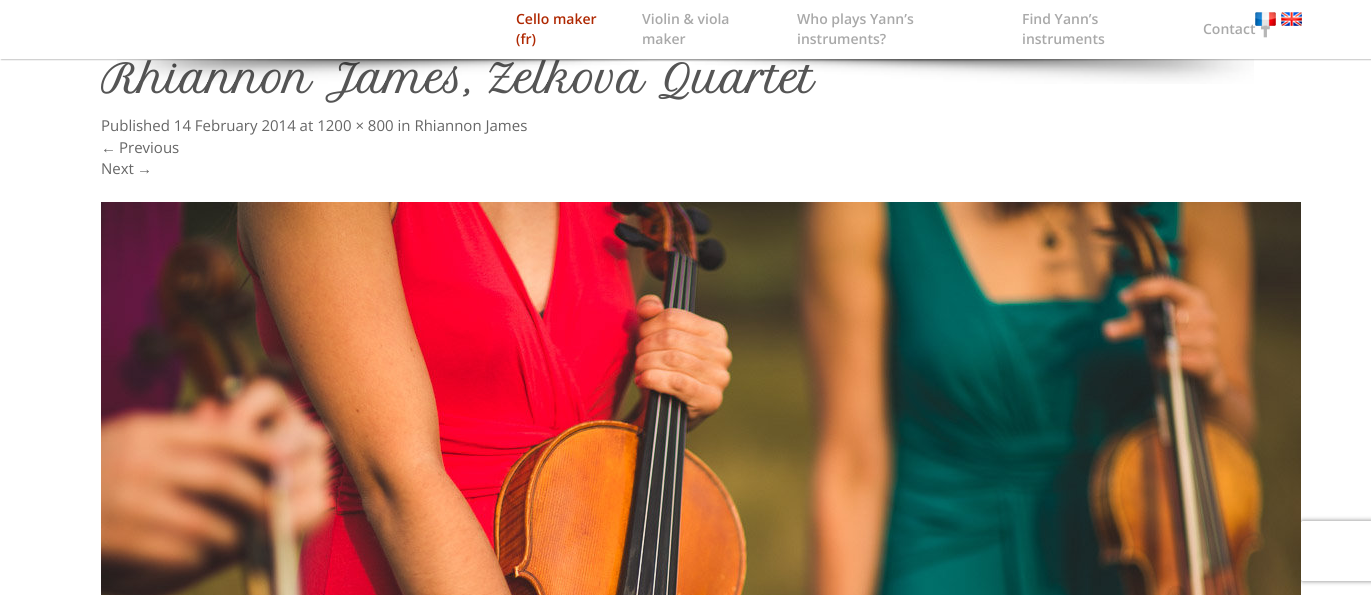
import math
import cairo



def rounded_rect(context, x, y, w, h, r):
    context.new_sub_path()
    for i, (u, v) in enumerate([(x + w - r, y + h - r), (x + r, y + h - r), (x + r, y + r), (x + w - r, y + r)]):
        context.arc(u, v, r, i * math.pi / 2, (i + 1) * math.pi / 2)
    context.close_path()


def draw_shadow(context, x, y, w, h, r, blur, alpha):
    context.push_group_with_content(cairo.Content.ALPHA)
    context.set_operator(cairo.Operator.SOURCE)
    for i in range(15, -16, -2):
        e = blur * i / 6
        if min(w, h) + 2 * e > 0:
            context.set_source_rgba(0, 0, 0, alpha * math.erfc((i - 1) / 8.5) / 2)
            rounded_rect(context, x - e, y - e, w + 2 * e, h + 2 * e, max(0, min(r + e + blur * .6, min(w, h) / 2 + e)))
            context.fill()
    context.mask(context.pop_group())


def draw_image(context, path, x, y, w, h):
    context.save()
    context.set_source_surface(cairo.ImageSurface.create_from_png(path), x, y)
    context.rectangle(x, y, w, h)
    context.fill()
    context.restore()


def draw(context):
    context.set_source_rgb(1, 1, 1)
    context.paint()
    context.save()
    context.rectangle(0, 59, 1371, 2)
    context.clip()
    context.set_source_rgb(204 / 255, 204 / 255, 204 / 255)
    draw_shadow(context, 1, 1, 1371, 59, 0, 0.5, 1)
    context.restore()
    draw_image(context, "images/1.png", 1261, 25, 9, 13)
    draw_image(context, "images/4.png", 1281, 12, 21, 14)
    context.save()
    context.set_fill_rule(cairo.FillRule.EVEN_ODD)
    context.new_path()
    context.move_to(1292, 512)
    context.line_to(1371, 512)
    context.line_to(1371, 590)
    context.line_to(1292, 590)
    context.close_path()
    context.move_to(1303, 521)
    context.line_to(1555, 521)
    context.curve_to(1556, 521, 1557, 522, 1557, 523)
    context.line_to(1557, 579)
    context.curve_to(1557, 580, 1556, 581, 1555, 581)
    context.line_to(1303, 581)
    context.curve_to(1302, 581, 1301, 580, 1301, 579)
    context.line_to(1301, 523)
    context.curve_to(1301, 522, 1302, 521, 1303, 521)
    context.close_path()
    context.clip()
    context.set_source_rgb(128 / 255, 128 / 255, 128 / 255)
    draw_shadow(context, 1301, 521, 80, 60, 2, 2.5, 1)
    context.restore()
    draw_image(context, "images/5.png", 101, 202, 1200, 393)
    context.select_font_face("Open Sans SemiBold")
    context.set_font_size(14)
    context.set_source_rgb(175 / 255, 40 / 255, 2 / 255)
    context.move_to(516, 24)
    context.show_text("Cello maker")
    context.move_to(516, 44)
    context.show_text("(fr)")
    context.set_source_rgb(169 / 255, 169 / 255, 169 / 255)
    context.move_to(642, 24)
    context.show_text("Violin & viola")
    context.move_to(642, 44)
    context.show_text("maker")
    context.move_to(797, 24)
    context.show_text("Who plays Yann’s")
    context.move_to(797, 44)
    context.show_text("instruments?")
    context.move_to(1022, 24)
    context.show_text("Find Yann’s")
    context.move_to(1022, 44)
    context.show_text("instruments")
    context.move_to(1203, 34)
    context.show_text("Contact")
    draw_image(context, "images/3.png", 1255, 12, 21, 14)
    context.select_font_face("Petit Formal Script", cairo.FontSlant.NORMAL, cairo.FontWeight.BOLD)
    context.set_font_size(38)
    context.set_source_rgb(85 / 255, 85 / 255, 85 / 255)
    context.move_to(101, 93)
    context.show_text("Rhiannon James, Zelkova Quartet")
    draw_image(context, "images/2.png", 117, 59, 1137, 25)
    context.select_font_face("Open Sans")
    context.set_font_size(15)
    context.set_source_rgb(102 / 255, 102 / 255, 102 / 255)
    context.move_to(101, 131)
    context.show_text("Published 14 February 2014 at 1200 × 800 in Rhiannon James")
    context.select_font_face("Liberation Sans")
    context.move_to(101, 153)
    context.show_text("←")
    context.select_font_face("Open Sans")
    context.move_to(119, 153)
    context.show_text("Previous")
    context.move_to(101, 174)
    context.show_text("Next")
    context.select_font_face("Liberation Sans")
    context.move_to(137, 174)
    context.show_text("→")


surface = cairo.ImageSurface(cairo.Format.RGB24, 1371, 595)
context = cairo.Context(surface)
options = cairo.FontOptions()
options.set_hint_metrics(cairo.HintMetrics.OFF)
options.set_hint_style(cairo.HintStyle.NONE)
context.set_font_options(options)
context.set_miter_limit(4)
draw(context)
surface.write_to_png("out.png")
